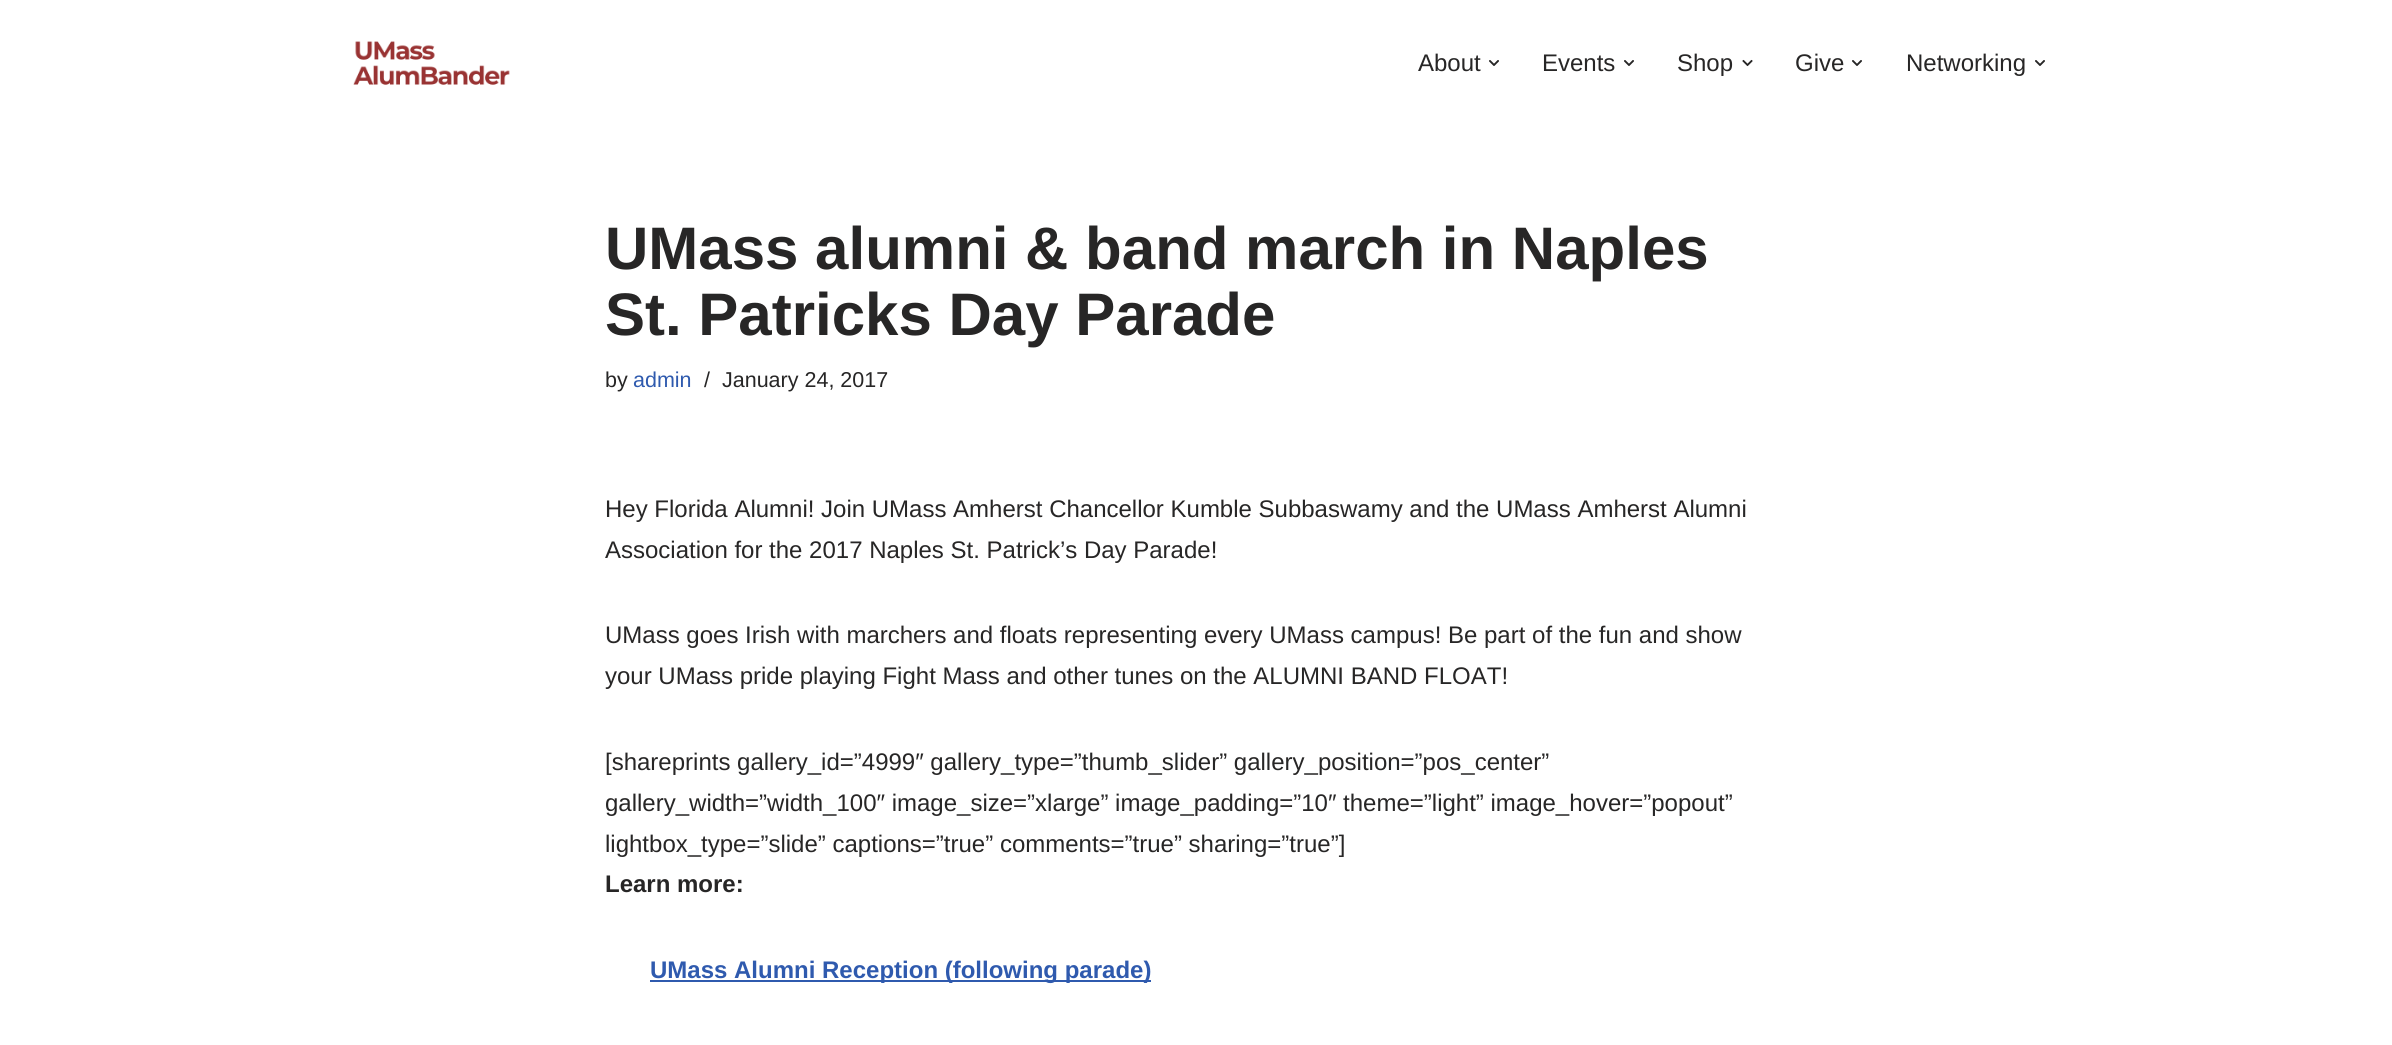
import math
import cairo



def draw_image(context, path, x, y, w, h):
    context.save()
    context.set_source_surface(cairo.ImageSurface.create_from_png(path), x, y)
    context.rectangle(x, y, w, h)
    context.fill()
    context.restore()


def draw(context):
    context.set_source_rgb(1, 1, 1)
    context.paint()
    draw_image(context, "images/1.png", 353, 41, 157, 44)
    draw_image(context, "images/2.png", 1489, 60, 10, 6)
    draw_image(context, "images/2.png", 1624, 60, 10, 6)
    draw_image(context, "images/3.png", 1742, 59, 11, 8)
    draw_image(context, "images/2.png", 1852, 60, 10, 6)
    draw_image(context, "images/2.png", 2035, 60, 10, 6)
    context.set_source_rgb(47 / 255, 90 / 255, 174 / 255)
    context.rectangle(650, 980, 501, 2)
    context.fill()
    context.select_font_face("Liberation Sans")
    context.set_font_size(24)
    context.set_source_rgb(39 / 255, 38 / 255, 38 / 255)
    context.move_to(1418, 71)
    context.show_text("About")
    context.move_to(1542, 71)
    context.show_text("Events")
    context.move_to(1677, 71)
    context.show_text("Shop")
    context.move_to(1795, 71)
    context.show_text("Give")
    context.move_to(1906, 71)
    context.show_text("Networking")
    context.select_font_face("Liberation Sans", cairo.FontSlant.NORMAL, cairo.FontWeight.BOLD)
    context.set_font_size(60)
    context.move_to(605, 269)
    context.show_text("UMass alumni & band march in Naples")
    context.move_to(605, 335)
    context.show_text("St. Patricks Day Parade")
    context.select_font_face("Liberation Sans")
    context.set_font_size(21.5)
    context.move_to(605, 387)
    context.show_text("by")
    context.set_source_rgb(47 / 255, 90 / 255, 174 / 255)
    context.move_to(633, 387)
    context.show_text("admin")
    context.set_source_rgb(39 / 255, 38 / 255, 38 / 255)
    context.move_to(704, 387)
    context.show_text("/")
    context.move_to(722, 387)
    context.show_text("January 24, 2017")
    context.set_font_size(24)
    context.move_to(605, 517)
    context.show_text("Hey Florida Alumni! Join UMass Amherst Chancellor Kumble Subbaswamy and the UMass Amherst Alumni")
    context.move_to(605, 558)
    context.show_text("Association for the 2017 Naples St. Patrick’s Day Parade!")
    context.move_to(605, 643)
    context.show_text("UMass goes Irish with marchers and floats representing every UMass campus! Be part of the fun and show")
    context.move_to(605, 684)
    context.show_text("your UMass pride playing Fight Mass and other tunes on the ALUMNI BAND FLOAT!")
    context.move_to(605, 770)
    context.show_text("[shareprints gallery_id=”4999″ gallery_type=”thumb_slider” gallery_position=”pos_center”")
    context.move_to(605, 811)
    context.show_text("gallery_width=”width_100″ image_size=”xlarge” image_padding=”10″ theme=”light” image_hover=”popout”")
    context.move_to(605, 852)
    context.show_text("lightbox_type=”slide” captions=”true” comments=”true” sharing=”true”]")
    context.select_font_face("Liberation Sans", cairo.FontSlant.NORMAL, cairo.FontWeight.BOLD)
    context.move_to(605, 892)
    context.show_text("Learn more:")
    context.set_source_rgb(47 / 255, 90 / 255, 174 / 255)
    context.move_to(650, 978)
    context.show_text("UMass Alumni Reception (following parade)")


surface = cairo.ImageSurface(cairo.Format.RGB24, 2392, 1045)
context = cairo.Context(surface)
options = cairo.FontOptions()
options.set_hint_metrics(cairo.HintMetrics.OFF)
options.set_hint_style(cairo.HintStyle.NONE)
context.set_font_options(options)
context.set_miter_limit(4)
draw(context)
surface.write_to_png("out.png")
